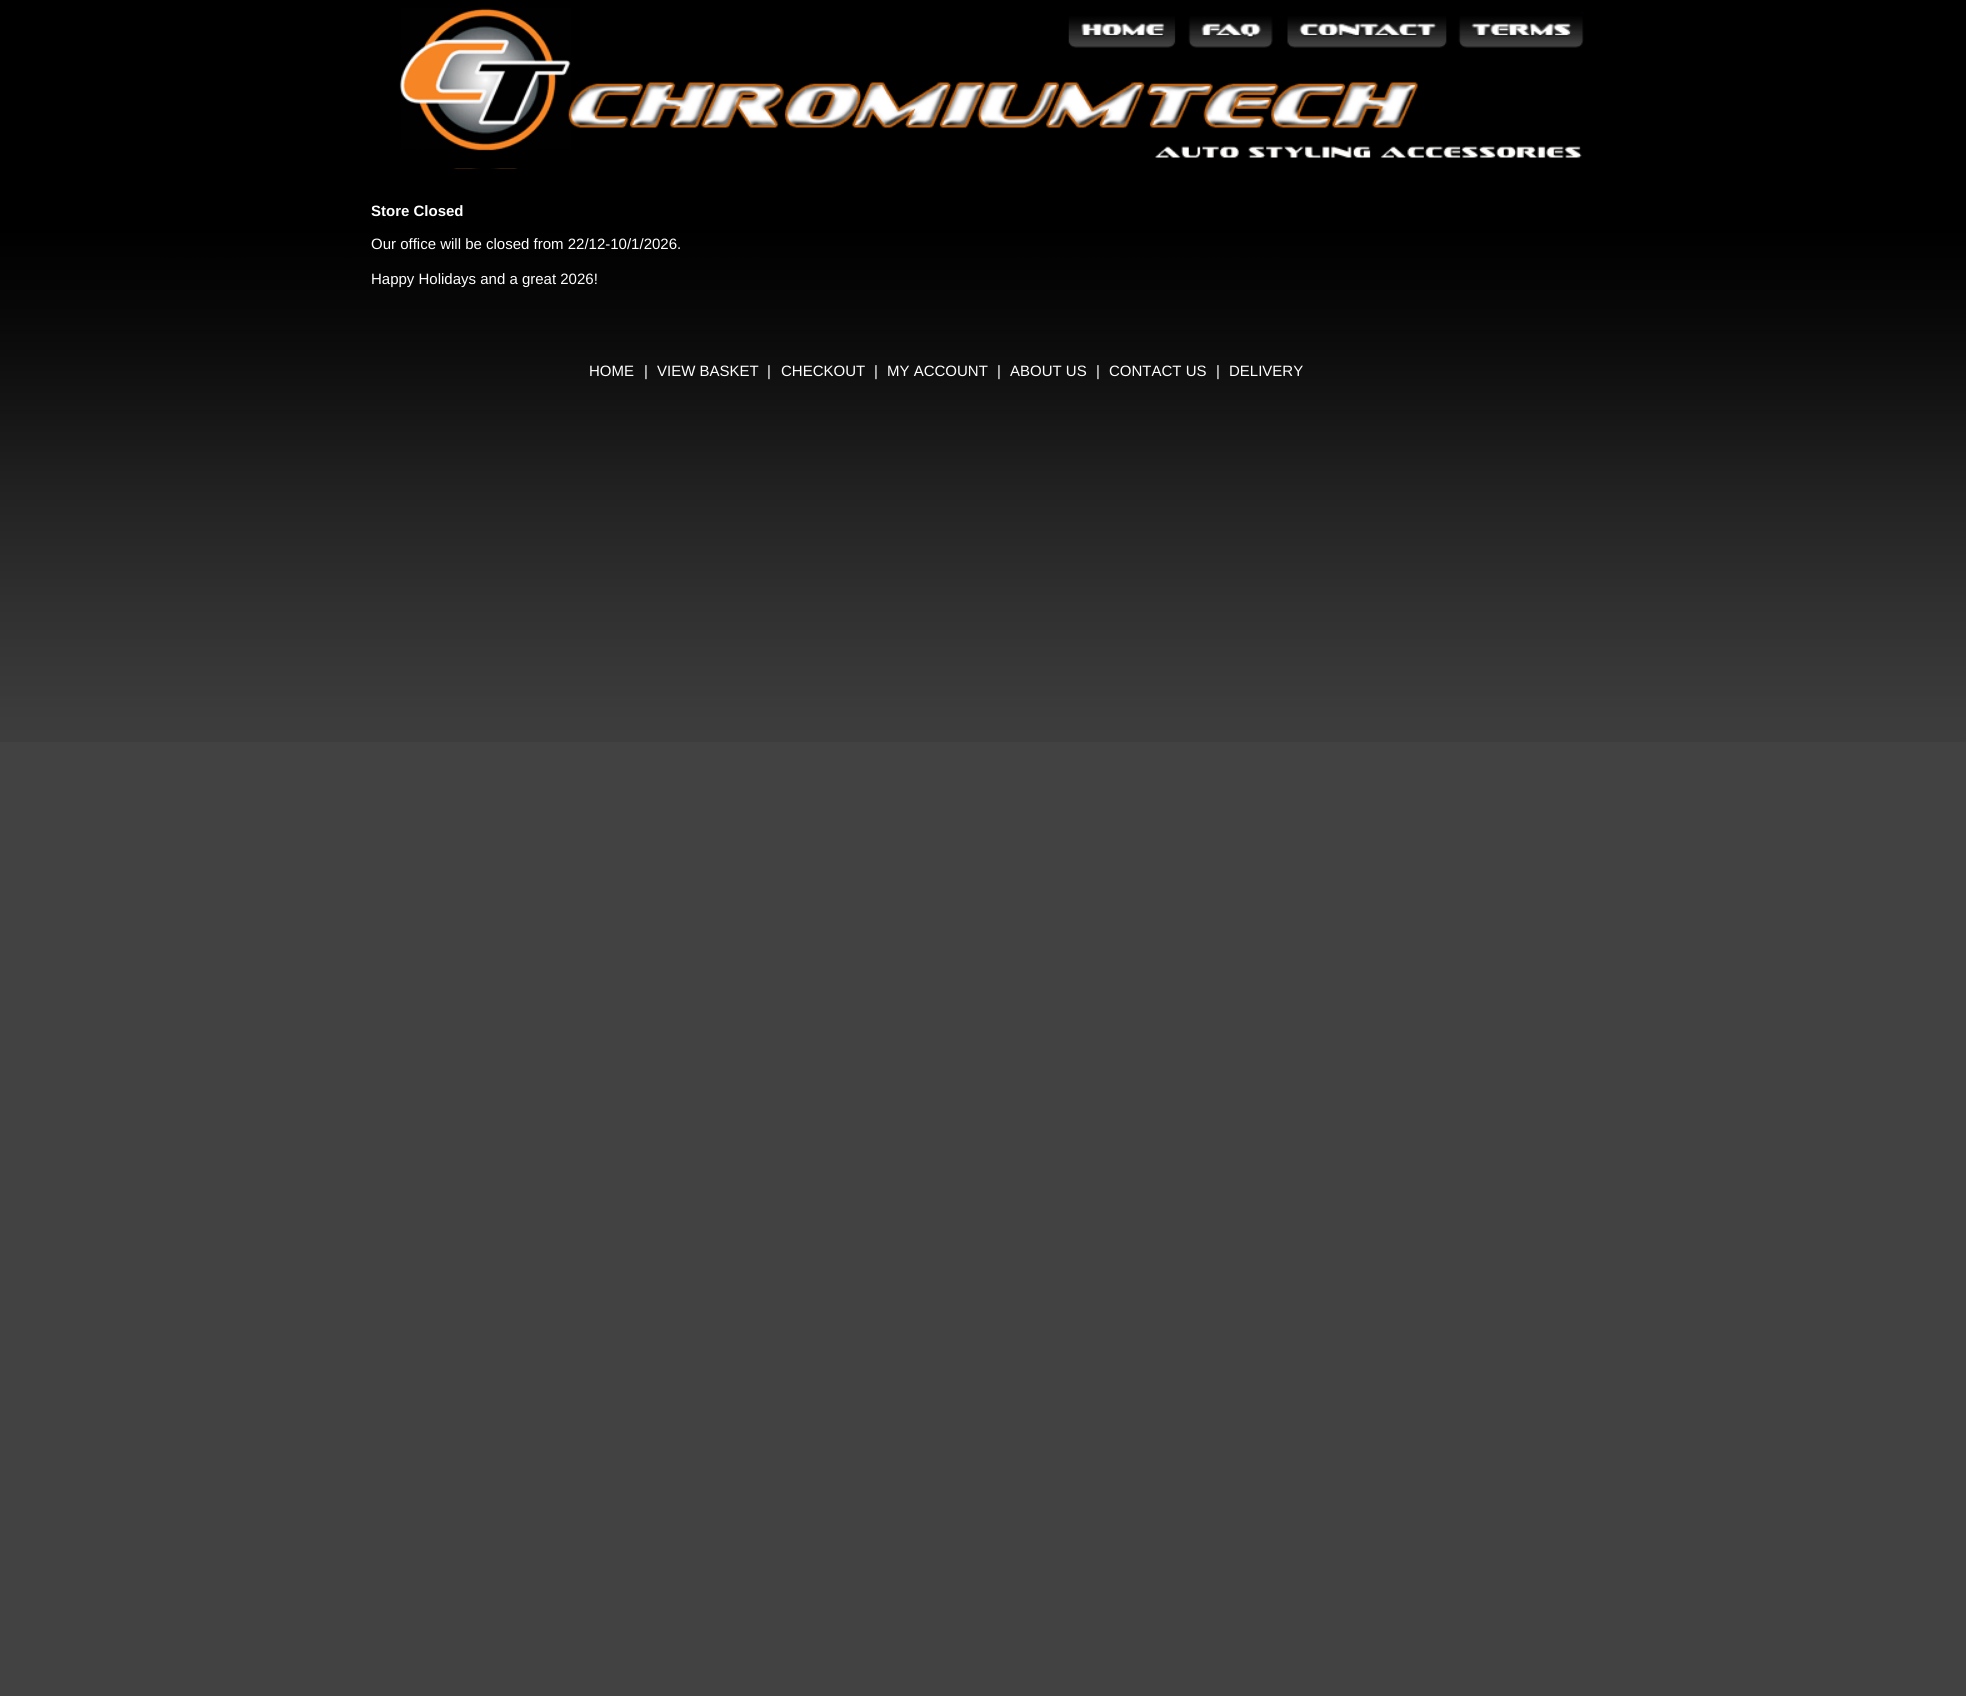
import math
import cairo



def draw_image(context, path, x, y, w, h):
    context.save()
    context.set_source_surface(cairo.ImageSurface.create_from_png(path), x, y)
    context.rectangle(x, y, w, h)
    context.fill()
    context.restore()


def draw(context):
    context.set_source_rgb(66 / 255, 66 / 255, 66 / 255)
    context.paint()
    draw_image(context, "images/1.png", 0, 0, 1966, 742)
    draw_image(context, "images/2.png", 399, 168, 1185, 1)
    draw_image(context, "images/3.png", 399, 8, 1185, 161)
    context.select_font_face("Liberation Sans", cairo.FontSlant.NORMAL, cairo.FontWeight.BOLD)
    context.set_font_size(15)
    context.set_source_rgb(1, 1, 1)
    context.move_to(371, 216)
    context.show_text("Store Closed")
    context.select_font_face("Liberation Sans")
    context.move_to(371, 249)
    context.show_text("Our office will be closed from 22/12-10/1/2026.")
    context.move_to(371, 284)
    context.show_text("Happy Holidays and a great 2026!")
    context.move_to(589, 376)
    context.show_text("HOME")
    context.move_to(644, 376)
    context.show_text("|")
    context.move_to(657, 376)
    context.show_text("VIEW BASKET")
    context.move_to(767, 376)
    context.show_text("|")
    context.move_to(781, 376)
    context.show_text("CHECKOUT")
    context.move_to(874, 376)
    context.show_text("|")
    context.move_to(887, 376)
    context.show_text("MY ACCOUNT")
    context.move_to(997, 376)
    context.show_text("|")
    context.move_to(1010, 376)
    context.show_text("ABOUT US")
    context.move_to(1096, 376)
    context.show_text("|")
    context.move_to(1109, 376)
    context.show_text("CONTACT US")
    context.move_to(1216, 376)
    context.show_text("|")
    context.move_to(1229, 376)
    context.show_text("DELIVERY")


surface = cairo.ImageSurface(cairo.Format.RGB24, 1966, 1696)
context = cairo.Context(surface)
options = cairo.FontOptions()
options.set_hint_metrics(cairo.HintMetrics.OFF)
options.set_hint_style(cairo.HintStyle.NONE)
context.set_font_options(options)
context.set_miter_limit(4)
draw(context)
surface.write_to_png("out.png")
